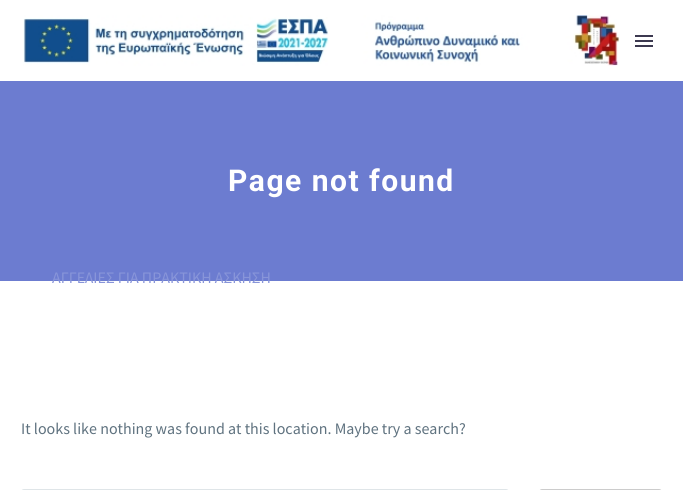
import math
import cairo



def draw_spaced(context, x, y, s, letter, word):
    context.move_to(x, y)
    for ch in s:
        context.show_text(ch)
        context.rel_move_to(letter + word * (ch == ' '), 0)


def rounded_rect(context, x, y, w, h, r):
    context.new_sub_path()
    for i, (u, v) in enumerate([(x + w - r, y + h - r), (x + r, y + h - r), (x + r, y + r), (x + w - r, y + r)]):
        context.arc(u, v, r, i * math.pi / 2, (i + 1) * math.pi / 2)
    context.close_path()


def draw_image(context, path, x, y, w, h):
    context.save()
    context.set_source_surface(cairo.ImageSurface.create_from_png(path), x, y)
    context.rectangle(x, y, w, h)
    context.fill()
    context.restore()


def draw(context):
    context.set_source_rgb(1, 1, 1)
    context.paint()
    context.set_source_rgb(108 / 255, 124 / 255, 208 / 255)
    context.rectangle(0, 81, 683, 200)
    context.fill()
    rounded_rect(context, 21.5, 489.5, 487, 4, 2.5)
    context.set_source_rgb(223 / 255, 229 / 255, 232 / 255)
    context.set_line_width(1)
    context.stroke()
    context.set_source_rgb(204 / 255, 204 / 255, 204 / 255)
    rounded_rect(context, 539, 489, 123, 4, 3)
    context.fill()
    draw_image(context, "images/1.png", 23, 15, 597, 51)
    context.set_source_rgb(60 / 255, 57 / 255, 80 / 255)
    context.rectangle(635, 35, 18, 2)
    context.fill()
    context.rectangle(635, 40, 18, 2)
    context.fill()
    context.rectangle(635, 45, 18, 2)
    context.fill()
    context.select_font_face("Roboto", cairo.FontSlant.NORMAL, cairo.FontWeight.BOLD)
    context.set_font_size(30)
    context.set_source_rgb(1, 1, 1)
    draw_spaced(context, 228, 191, "Page not found", 1.5, 0)
    context.select_font_face("Source Sans Pro")
    context.set_font_size(16)
    context.set_source_rgb(95 / 255, 114 / 255, 127 / 255)
    context.move_to(21, 434)
    context.show_text("It looks like nothing was found at this location. Maybe try a search?")
    context.set_source_rgb(136 / 255, 149 / 255, 217 / 255)
    context.move_to(52, 283)
    context.show_text("ΑΓΓΕΛΙΕΣ ΓΙΑ ΠΡΑΚΤΙΚΗ ΑΣΚΗΣΗ")


surface = cairo.ImageSurface(cairo.Format.RGB24, 683, 490)
context = cairo.Context(surface)
options = cairo.FontOptions()
options.set_hint_metrics(cairo.HintMetrics.OFF)
options.set_hint_style(cairo.HintStyle.NONE)
context.set_font_options(options)
context.set_miter_limit(4)
draw(context)
surface.write_to_png("out.png")
